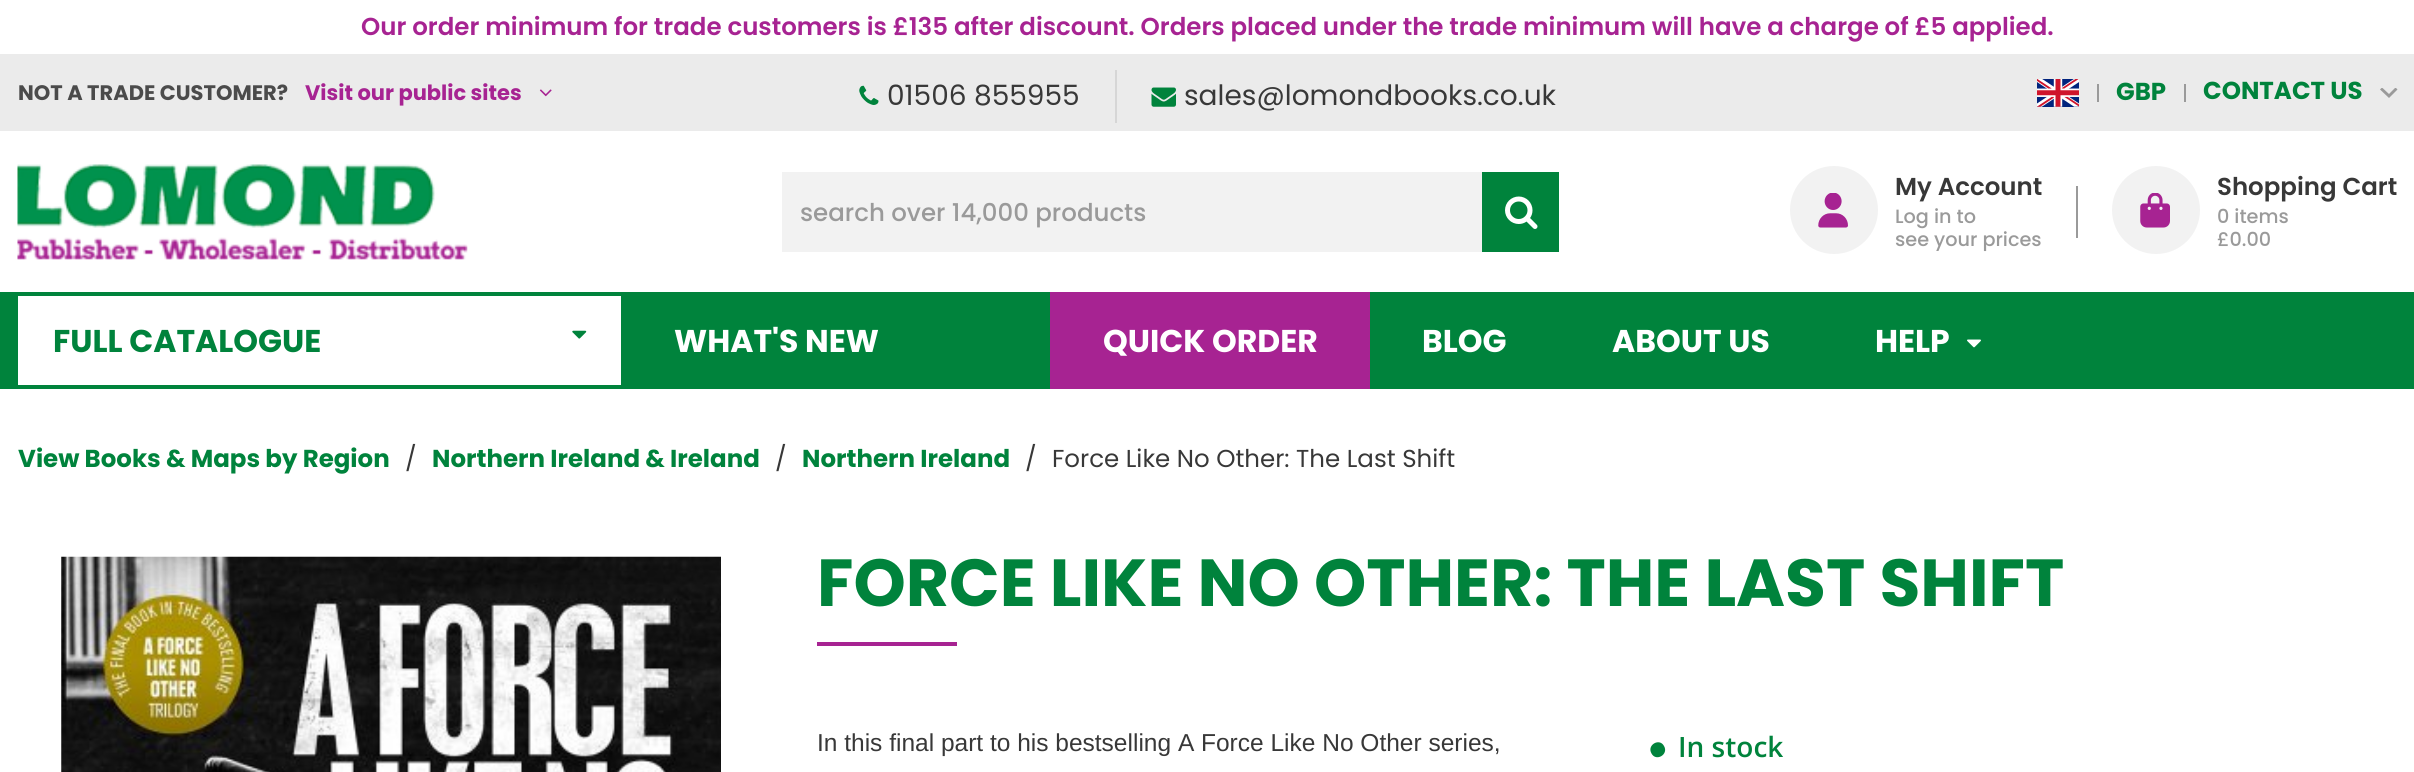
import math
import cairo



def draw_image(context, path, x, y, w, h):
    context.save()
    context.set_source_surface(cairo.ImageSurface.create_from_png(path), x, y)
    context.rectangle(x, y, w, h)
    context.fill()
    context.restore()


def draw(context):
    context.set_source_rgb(1, 1, 1)
    context.paint()
    context.set_source_rgb(235 / 255, 235 / 255, 235 / 255)
    context.rectangle(0, 54, 2414, 77)
    context.fill()
    draw_image(context, "images/1.png", 539, 89, 13, 8)
    context.set_source_rgb(214 / 255, 214 / 255, 214 / 255)
    context.rectangle(1115, 70, 2, 53)
    context.fill()
    draw_image(context, "images/2.png", 859, 85, 20, 20)
    draw_image(context, "images/3.png", 1151, 87, 25, 20)
    draw_image(context, "images/4.png", 2037, 79, 42, 28)
    context.set_source_rgb(154 / 255, 154 / 255, 154 / 255)
    context.rectangle(2184, 84, 2, 18)
    context.fill()
    context.rectangle(2097, 84, 2, 18)
    context.fill()
    context.save()
    context.rectangle(2380, 88, 18, 10)
    context.clip()
    context.new_path()
    context.move_to(2389, 94)
    context.line_to(2395.5, 87.5)
    context.line_to(2397.5, 89.5)
    context.line_to(2389, 98)
    context.line_to(2380, 89.5)
    context.line_to(2382, 87.5)
    context.close_path()
    context.fill()
    context.restore()
    draw_image(context, "images/5.png", 17, 164, 451, 96)
    context.set_source_rgb(242 / 255, 242 / 255, 242 / 255)
    context.rectangle(782, 172, 700, 80)
    context.fill()
    context.set_source_rgb(0, 131 / 255, 60 / 255)
    context.rectangle(1482, 172, 77, 80)
    context.fill()
    draw_image(context, "images/6.png", 1505, 196, 33, 33)
    context.set_source_rgb(242 / 255, 242 / 255, 242 / 255)
    context.arc(1834, 210, 44, 0, 2 * math.pi)
    context.fill()
    draw_image(context, "images/7.png", 1818, 193, 30, 35)
    context.set_source_rgb(154 / 255, 154 / 255, 154 / 255)
    context.rectangle(2076, 186, 2, 52)
    context.fill()
    context.set_source_rgb(242 / 255, 242 / 255, 242 / 255)
    context.arc(2156, 210, 44, 0, 2 * math.pi)
    context.fill()
    draw_image(context, "images/8.png", 2140, 193, 30, 35)
    context.set_source_rgb(0, 131 / 255, 60 / 255)
    context.rectangle(0, 292, 2414, 97)
    context.fill()
    context.set_source_rgb(1, 1, 1)
    context.rectangle(18, 296, 603, 89)
    context.fill()
    draw_image(context, "images/9.png", 572, 330, 15, 9)
    context.set_source_rgb(167 / 255, 35 / 255, 146 / 255)
    context.rectangle(1050, 292, 320, 97)
    context.fill()
    draw_image(context, "images/10.png", 1967, 339, 14, 9)
    draw_image(context, "images/11.png", 61, 556, 660, 216)
    context.rectangle(817, 642, 140, 4)
    context.fill()
    context.set_source_rgb(0, 131 / 255, 60 / 255)
    context.new_path()
    context.move_to(1664, 746)
    context.curve_to(1669, 754.5, 1656, 762, 1651.5, 753.5)
    context.curve_to(1646.5, 745, 1659.5, 737.5, 1664, 746)
    context.close_path()
    context.fill()
    context.select_font_face("Poppins SemiBold")
    context.set_font_size(24.5)
    context.set_source_rgb(167 / 255, 35 / 255, 146 / 255)
    context.move_to(361, 35)
    context.show_text("Our order minimum for trade customers is £135 after discount. Orders placed under the trade minimum will have a charge of £5 applied.")
    context.select_font_face("Poppins", cairo.FontSlant.NORMAL, cairo.FontWeight.BOLD)
    context.set_font_size(21)
    context.set_source_rgb(75 / 255, 75 / 255, 75 / 255)
    context.move_to(18, 100)
    context.show_text("NOT A TRADE CUSTOMER?")
    context.set_source_rgb(167 / 255, 35 / 255, 146 / 255)
    context.move_to(305, 100)
    context.show_text("Visit our public sites")
    context.select_font_face("Poppins")
    context.set_font_size(28)
    context.set_source_rgb(56 / 255, 56 / 255, 56 / 255)
    context.move_to(887, 105)
    context.show_text("01506 855955")
    context.move_to(1184, 105)
    context.show_text("sales@lomondbooks.co.uk")
    context.select_font_face("Poppins", cairo.FontSlant.NORMAL, cairo.FontWeight.BOLD)
    context.set_font_size(24.5)
    context.set_source_rgb(0, 131 / 255, 60 / 255)
    context.move_to(2116, 100)
    context.show_text("GBP")
    context.move_to(2203, 99)
    context.show_text("CONTACT US")
    context.select_font_face("Poppins Medium")
    context.set_source_rgb(154 / 255, 154 / 255, 154 / 255)
    context.move_to(800, 221)
    context.show_text("search over 14,000 products")
    context.select_font_face("Poppins SemiBold")
    context.set_source_rgb(56 / 255, 56 / 255, 56 / 255)
    context.move_to(1895, 195)
    context.show_text("My Account")
    context.select_font_face("Poppins Medium")
    context.set_font_size(19.25)
    context.set_source_rgb(154 / 255, 154 / 255, 154 / 255)
    context.move_to(1895, 223)
    context.show_text("Log in to")
    context.move_to(1895, 246)
    context.show_text("see your prices")
    context.select_font_face("Poppins SemiBold")
    context.set_font_size(24.5)
    context.set_source_rgb(56 / 255, 56 / 255, 56 / 255)
    context.move_to(2217, 195)
    context.show_text("Shopping Cart")
    context.select_font_face("Poppins Medium")
    context.set_font_size(19.25)
    context.set_source_rgb(154 / 255, 154 / 255, 154 / 255)
    context.move_to(2217, 223)
    context.show_text("0 items")
    context.move_to(2217, 246)
    context.show_text("£0.00")
    context.select_font_face("Poppins", cairo.FontSlant.NORMAL, cairo.FontWeight.BOLD)
    context.set_font_size(31.5)
    context.set_source_rgb(0, 131 / 255, 60 / 255)
    context.move_to(53, 352)
    context.show_text("FULL CATALOGUE")
    context.set_source_rgb(1, 1, 1)
    context.move_to(674, 352)
    context.show_text("WHAT'S NEW")
    context.move_to(1103, 352)
    context.show_text("QUICK ORDER")
    context.move_to(1422, 352)
    context.show_text("BLOG")
    context.move_to(1612, 352)
    context.show_text("ABOUT US")
    context.move_to(1875, 352)
    context.show_text("HELP")
    context.set_font_size(24.5)
    context.set_source_rgb(0, 131 / 255, 60 / 255)
    context.move_to(18, 467)
    context.show_text("View Books & Maps by Region")
    context.select_font_face("Poppins")
    context.set_source_rgb(56 / 255, 56 / 255, 56 / 255)
    context.move_to(405, 467)
    context.show_text("/")
    context.select_font_face("Poppins", cairo.FontSlant.NORMAL, cairo.FontWeight.BOLD)
    context.set_source_rgb(0, 131 / 255, 60 / 255)
    context.move_to(432, 467)
    context.show_text("Northern Ireland & Ireland")
    context.select_font_face("Poppins")
    context.set_source_rgb(56 / 255, 56 / 255, 56 / 255)
    context.move_to(775, 467)
    context.show_text("/")
    context.select_font_face("Poppins", cairo.FontSlant.NORMAL, cairo.FontWeight.BOLD)
    context.set_source_rgb(0, 131 / 255, 60 / 255)
    context.move_to(802, 467)
    context.show_text("Northern Ireland")
    context.select_font_face("Poppins")
    context.set_source_rgb(56 / 255, 56 / 255, 56 / 255)
    context.move_to(1025, 467)
    context.show_text("/")
    context.move_to(1052, 467)
    context.show_text("Force Like No Other: The Last Shift")
    context.select_font_face("Poppins", cairo.FontSlant.NORMAL, cairo.FontWeight.BOLD)
    context.set_font_size(66.5)
    context.set_source_rgb(0, 131 / 255, 60 / 255)
    context.move_to(817, 606)
    context.show_text("FORCE LIKE NO OTHER: THE LAST SHIFT")
    context.select_font_face("Liberation Sans")
    context.set_font_size(24.5)
    context.set_source_rgb(56 / 255, 56 / 255, 56 / 255)
    context.move_to(817, 751)
    context.show_text("In this final part to his bestselling A Force Like No Other series,")
    context.select_font_face("Open Sans SemiBold")
    context.set_font_size(28)
    context.set_source_rgb(0, 131 / 255, 60 / 255)
    context.move_to(1678, 757)
    context.show_text("In stock")


surface = cairo.ImageSurface(cairo.Format.RGB24, 2414, 772)
context = cairo.Context(surface)
options = cairo.FontOptions()
options.set_hint_metrics(cairo.HintMetrics.OFF)
options.set_hint_style(cairo.HintStyle.NONE)
context.set_font_options(options)
context.set_miter_limit(4)
draw(context)
surface.write_to_png("out.png")
